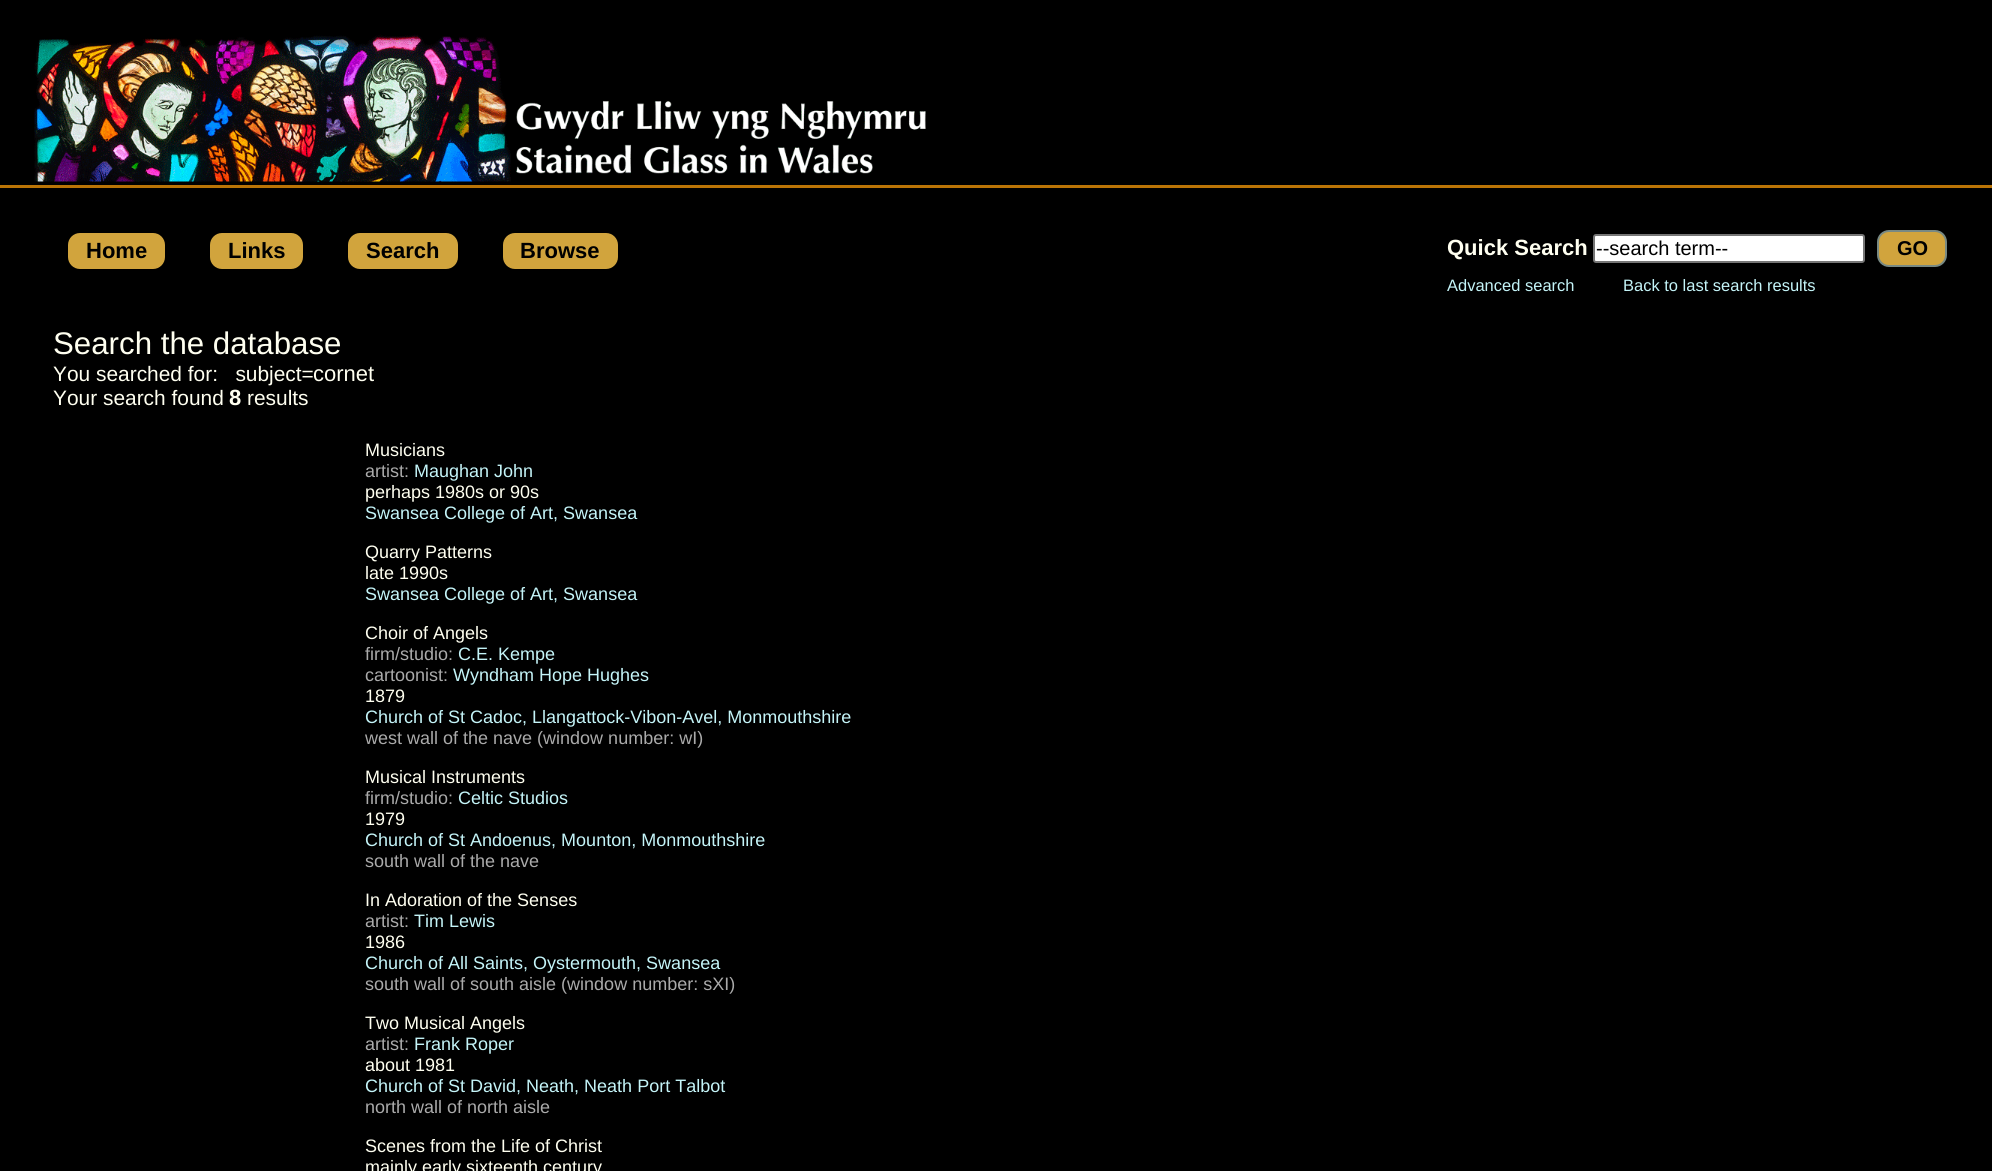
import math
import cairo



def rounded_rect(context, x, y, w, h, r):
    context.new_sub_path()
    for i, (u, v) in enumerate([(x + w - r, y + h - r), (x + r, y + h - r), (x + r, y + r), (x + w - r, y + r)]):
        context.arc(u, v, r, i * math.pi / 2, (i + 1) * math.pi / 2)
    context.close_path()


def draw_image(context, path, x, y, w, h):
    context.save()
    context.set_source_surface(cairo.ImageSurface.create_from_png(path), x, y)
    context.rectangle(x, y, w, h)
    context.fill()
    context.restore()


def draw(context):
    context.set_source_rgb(0, 0, 0)
    context.paint()
    context.set_source_rgb(186 / 255, 116 / 255, 6 / 255)
    context.rectangle(0, 185, 1992, 3)
    context.fill()
    draw_image(context, "images/1.png", 34, 34, 892, 148)
    context.set_source_rgb(209 / 255, 164 / 255, 61 / 255)
    rounded_rect(context, 68, 233, 97, 36, 12)
    context.fill()
    rounded_rect(context, 210, 233, 93, 36, 12)
    context.fill()
    rounded_rect(context, 348, 233, 110, 36, 12)
    context.fill()
    rounded_rect(context, 503, 233, 115, 36, 12)
    context.fill()
    context.set_source_rgb(1, 1, 1)
    rounded_rect(context, 1594, 235, 270, 27, 2)
    context.fill_preserve()
    context.set_source_rgb(118 / 255, 118 / 255, 118 / 255)
    context.stroke()
    context.set_source_rgb(209 / 255, 164 / 255, 61 / 255)
    rounded_rect(context, 1878, 231, 68, 35, 11)
    context.fill_preserve()
    context.set_source_rgb(120 / 255, 137 / 255, 131 / 255)
    context.stroke()
    context.select_font_face("Liberation Sans", cairo.FontSlant.NORMAL, cairo.FontWeight.BOLD)
    context.set_font_size(22)
    context.set_source_rgb(0, 0, 0)
    context.move_to(86, 258)
    context.show_text("Home")
    context.move_to(228, 258)
    context.show_text("Links")
    context.move_to(366, 258)
    context.show_text("Search")
    context.move_to(520, 258)
    context.show_text("Browse")
    context.set_source_rgb(1, 1, 240 / 255)
    context.move_to(1447, 255)
    context.show_text("Quick Search")
    context.select_font_face("Liberation Sans")
    context.set_font_size(20)
    context.set_source_rgb(0, 0, 0)
    context.move_to(1596, 255)
    context.show_text("--search term--")
    context.select_font_face("Liberation Sans", cairo.FontSlant.NORMAL, cairo.FontWeight.BOLD)
    context.move_to(1897, 255)
    context.show_text("GO")
    context.select_font_face("Liberation Sans")
    context.set_font_size(16.5)
    context.set_source_rgb(196 / 255, 244 / 255, 248 / 255)
    context.move_to(1447, 291)
    context.show_text("Advanced search")
    context.move_to(1623, 291)
    context.show_text("Back to last search results")
    context.set_font_size(31.25)
    context.set_source_rgb(1, 1, 240 / 255)
    context.move_to(53, 354)
    context.show_text("Search the database")
    context.set_font_size(20.9)
    context.move_to(53, 381)
    context.show_text("You searched for:   subject=")
    context.set_font_size(22)
    context.move_to(313, 381)
    context.show_text("cornet")
    context.set_font_size(20.9)
    context.move_to(53, 405)
    context.show_text("Your search found")
    context.select_font_face("Liberation Sans", cairo.FontSlant.NORMAL, cairo.FontWeight.BOLD)
    context.set_font_size(22)
    context.move_to(229, 405)
    context.show_text("8")
    context.select_font_face("Liberation Sans")
    context.set_font_size(20.9)
    context.move_to(247, 405)
    context.show_text("results")
    context.set_font_size(18)
    context.move_to(365, 456)
    context.show_text("Musicians")
    context.set_source_rgb(170 / 255, 170 / 255, 170 / 255)
    context.move_to(365, 477)
    context.show_text("artist:")
    context.set_source_rgb(196 / 255, 244 / 255, 248 / 255)
    context.move_to(414, 477)
    context.show_text("Maughan John")
    context.set_source_rgb(1, 1, 240 / 255)
    context.move_to(365, 498)
    context.show_text("perhaps 1980s or 90s")
    context.set_source_rgb(196 / 255, 244 / 255, 248 / 255)
    context.move_to(365, 519)
    context.show_text("Swansea College of Art, Swansea")
    context.set_source_rgb(1, 1, 240 / 255)
    context.move_to(365, 558)
    context.show_text("Quarry Patterns")
    context.move_to(365, 579)
    context.show_text("late 1990s")
    context.set_source_rgb(196 / 255, 244 / 255, 248 / 255)
    context.move_to(365, 600)
    context.show_text("Swansea College of Art, Swansea")
    context.set_source_rgb(1, 1, 240 / 255)
    context.move_to(365, 639)
    context.show_text("Choir of Angels")
    context.set_source_rgb(170 / 255, 170 / 255, 170 / 255)
    context.move_to(365, 660)
    context.show_text("firm/studio:")
    context.set_source_rgb(196 / 255, 244 / 255, 248 / 255)
    context.move_to(458, 660)
    context.show_text("C.E. Kempe")
    context.set_source_rgb(170 / 255, 170 / 255, 170 / 255)
    context.move_to(365, 681)
    context.show_text("cartoonist:")
    context.set_source_rgb(196 / 255, 244 / 255, 248 / 255)
    context.move_to(453, 681)
    context.show_text("Wyndham Hope Hughes")
    context.set_source_rgb(1, 1, 240 / 255)
    context.move_to(365, 702)
    context.show_text("1879")
    context.set_source_rgb(196 / 255, 244 / 255, 248 / 255)
    context.move_to(365, 723)
    context.show_text("Church of St Cadoc, Llangattock-Vibon-Avel, Monmouthshire")
    context.set_source_rgb(170 / 255, 170 / 255, 170 / 255)
    context.move_to(365, 744)
    context.show_text("west wall of the nave (window number: wI)")
    context.set_source_rgb(1, 1, 240 / 255)
    context.move_to(365, 783)
    context.show_text("Musical Instruments")
    context.set_source_rgb(170 / 255, 170 / 255, 170 / 255)
    context.move_to(365, 804)
    context.show_text("firm/studio:")
    context.set_source_rgb(196 / 255, 244 / 255, 248 / 255)
    context.move_to(458, 804)
    context.show_text("Celtic Studios")
    context.set_source_rgb(1, 1, 240 / 255)
    context.move_to(365, 825)
    context.show_text("1979")
    context.set_source_rgb(196 / 255, 244 / 255, 248 / 255)
    context.move_to(365, 846)
    context.show_text("Church of St Andoenus, Mounton, Monmouthshire")
    context.set_source_rgb(170 / 255, 170 / 255, 170 / 255)
    context.move_to(365, 867)
    context.show_text("south wall of the nave")
    context.set_source_rgb(1, 1, 240 / 255)
    context.move_to(365, 906)
    context.show_text("In Adoration of the Senses")
    context.set_source_rgb(170 / 255, 170 / 255, 170 / 255)
    context.move_to(365, 927)
    context.show_text("artist:")
    context.set_source_rgb(196 / 255, 244 / 255, 248 / 255)
    context.move_to(414, 927)
    context.show_text("Tim Lewis")
    context.set_source_rgb(1, 1, 240 / 255)
    context.move_to(365, 948)
    context.show_text("1986")
    context.set_source_rgb(196 / 255, 244 / 255, 248 / 255)
    context.move_to(365, 969)
    context.show_text("Church of All Saints, Oystermouth, Swansea")
    context.set_source_rgb(170 / 255, 170 / 255, 170 / 255)
    context.move_to(365, 990)
    context.show_text("south wall of south aisle (window number: sXI)")
    context.set_source_rgb(1, 1, 240 / 255)
    context.move_to(365, 1029)
    context.show_text("Two Musical Angels")
    context.set_source_rgb(170 / 255, 170 / 255, 170 / 255)
    context.move_to(365, 1050)
    context.show_text("artist:")
    context.set_source_rgb(196 / 255, 244 / 255, 248 / 255)
    context.move_to(414, 1050)
    context.show_text("Frank Roper")
    context.set_source_rgb(1, 1, 240 / 255)
    context.move_to(365, 1071)
    context.show_text("about 1981")
    context.set_source_rgb(196 / 255, 244 / 255, 248 / 255)
    context.move_to(365, 1092)
    context.show_text("Church of St David, Neath, Neath Port Talbot")
    context.set_source_rgb(170 / 255, 170 / 255, 170 / 255)
    context.move_to(365, 1113)
    context.show_text("north wall of north aisle")
    context.set_source_rgb(1, 1, 240 / 255)
    context.move_to(365, 1152)
    context.show_text("Scenes from the Life of Christ")
    context.move_to(365, 1173)
    context.show_text("mainly early sixteenth century")


surface = cairo.ImageSurface(cairo.Format.RGB24, 1992, 1171)
context = cairo.Context(surface)
options = cairo.FontOptions()
options.set_hint_metrics(cairo.HintMetrics.OFF)
options.set_hint_style(cairo.HintStyle.NONE)
context.set_font_options(options)
context.set_miter_limit(4)
draw(context)
surface.write_to_png("out.png")
